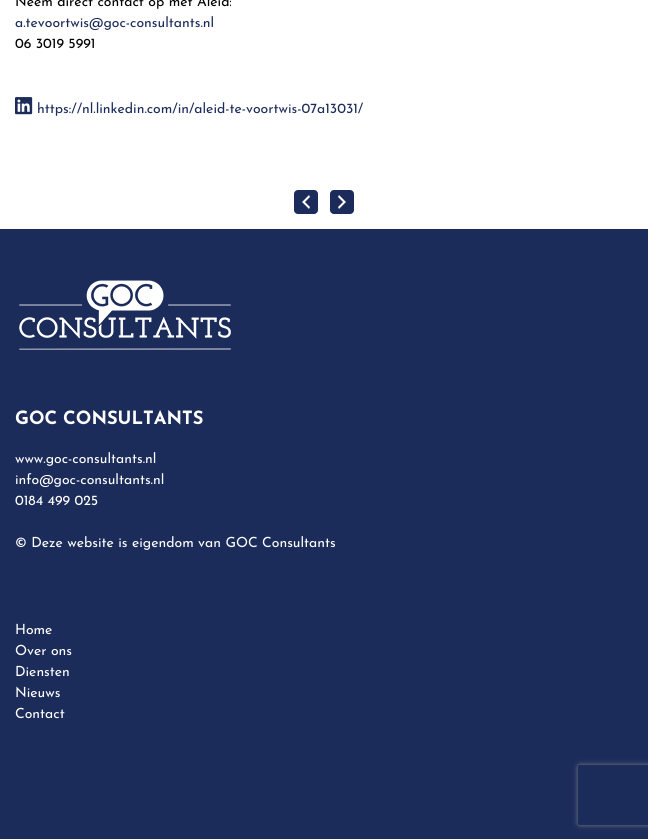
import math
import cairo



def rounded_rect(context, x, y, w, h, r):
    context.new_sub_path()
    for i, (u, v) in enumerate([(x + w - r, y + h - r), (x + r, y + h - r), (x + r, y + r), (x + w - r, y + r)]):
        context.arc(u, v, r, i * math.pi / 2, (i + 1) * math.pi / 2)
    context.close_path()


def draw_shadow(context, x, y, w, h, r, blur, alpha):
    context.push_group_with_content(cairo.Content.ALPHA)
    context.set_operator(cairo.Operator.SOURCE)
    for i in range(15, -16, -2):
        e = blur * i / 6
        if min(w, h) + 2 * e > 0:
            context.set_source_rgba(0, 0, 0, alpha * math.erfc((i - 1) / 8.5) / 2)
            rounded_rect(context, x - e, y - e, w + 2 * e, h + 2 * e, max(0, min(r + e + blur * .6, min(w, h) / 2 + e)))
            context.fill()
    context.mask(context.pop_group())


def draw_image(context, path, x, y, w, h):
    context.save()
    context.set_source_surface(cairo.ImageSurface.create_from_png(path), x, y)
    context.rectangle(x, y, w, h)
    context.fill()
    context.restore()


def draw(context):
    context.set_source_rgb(1, 1, 1)
    context.paint()
    draw_image(context, "images/1.png", 15, 97, 18, 18)
    context.set_source_rgb(28 / 255, 44 / 255, 90 / 255)
    rounded_rect(context, 294, 190, 24, 24, 4)
    context.fill()
    draw_image(context, "images/2.png", 302, 195, 8, 14)
    rounded_rect(context, 330, 190, 24, 24, 4)
    context.fill()
    draw_image(context, "images/3.png", 338, 195, 8, 14)
    context.rectangle(0, 229, 648, 610)
    context.fill()
    draw_image(context, "images/4.png", 19, 280, 212, 70)
    context.save()
    context.set_fill_rule(cairo.FillRule.EVEN_ODD)
    context.new_path()
    context.move_to(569, 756)
    context.line_to(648, 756)
    context.line_to(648, 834)
    context.line_to(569, 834)
    context.close_path()
    context.move_to(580, 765)
    context.line_to(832, 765)
    context.curve_to(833, 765, 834, 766, 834, 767)
    context.line_to(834, 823)
    context.curve_to(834, 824, 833, 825, 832, 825)
    context.line_to(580, 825)
    context.curve_to(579, 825, 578, 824, 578, 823)
    context.line_to(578, 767)
    context.curve_to(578, 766, 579, 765, 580, 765)
    context.close_path()
    context.clip()
    context.set_source_rgb(128 / 255, 128 / 255, 128 / 255)
    draw_shadow(context, 578, 765, 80, 60, 2, 2.5, 1)
    context.restore()
    context.select_font_face("Josefin Sans")
    context.set_font_size(14)
    context.set_source_rgb(0, 0, 0)
    context.move_to(15, 6)
    context.show_text("Neem direct contact op met Aleid:")
    context.set_source_rgb(28 / 255, 44 / 255, 90 / 255)
    context.move_to(15, 27)
    context.show_text("a.tevoortwis@goc-consultants.nl")
    context.set_source_rgb(0, 0, 0)
    context.move_to(15, 48)
    context.show_text("06 3019 5991")
    context.set_source_rgb(28 / 255, 44 / 255, 90 / 255)
    context.move_to(37, 113)
    context.show_text("https://nl.linkedin.com/in/aleid-te-voortwis-07a13031/")
    context.select_font_face("Josefin Sans", cairo.FontSlant.NORMAL, cairo.FontWeight.BOLD)
    context.set_font_size(18.25)
    context.set_source_rgb(1, 1, 1)
    context.move_to(15, 424)
    context.show_text("GOC CONSULTANTS")
    context.select_font_face("Josefin Sans")
    context.set_font_size(14)
    context.move_to(15, 463)
    context.show_text("www.goc-consultants.nl")
    context.move_to(15, 484)
    context.show_text("info@goc-consultants.nl")
    context.move_to(15, 505)
    context.show_text("0184 499 025")
    context.move_to(15, 547)
    context.show_text("© Deze website is eigendom van GOC Consultants")
    context.move_to(15, 634)
    context.show_text("Home")
    context.move_to(15, 655)
    context.show_text("Over ons")
    context.move_to(15, 676)
    context.show_text("Diensten")
    context.move_to(15, 697)
    context.show_text("Nieuws")
    context.move_to(15, 718)
    context.show_text("Contact")


surface = cairo.ImageSurface(cairo.Format.RGB24, 648, 839)
context = cairo.Context(surface)
options = cairo.FontOptions()
options.set_hint_metrics(cairo.HintMetrics.OFF)
options.set_hint_style(cairo.HintStyle.NONE)
context.set_font_options(options)
context.set_miter_limit(4)
draw(context)
surface.write_to_png("out.png")
